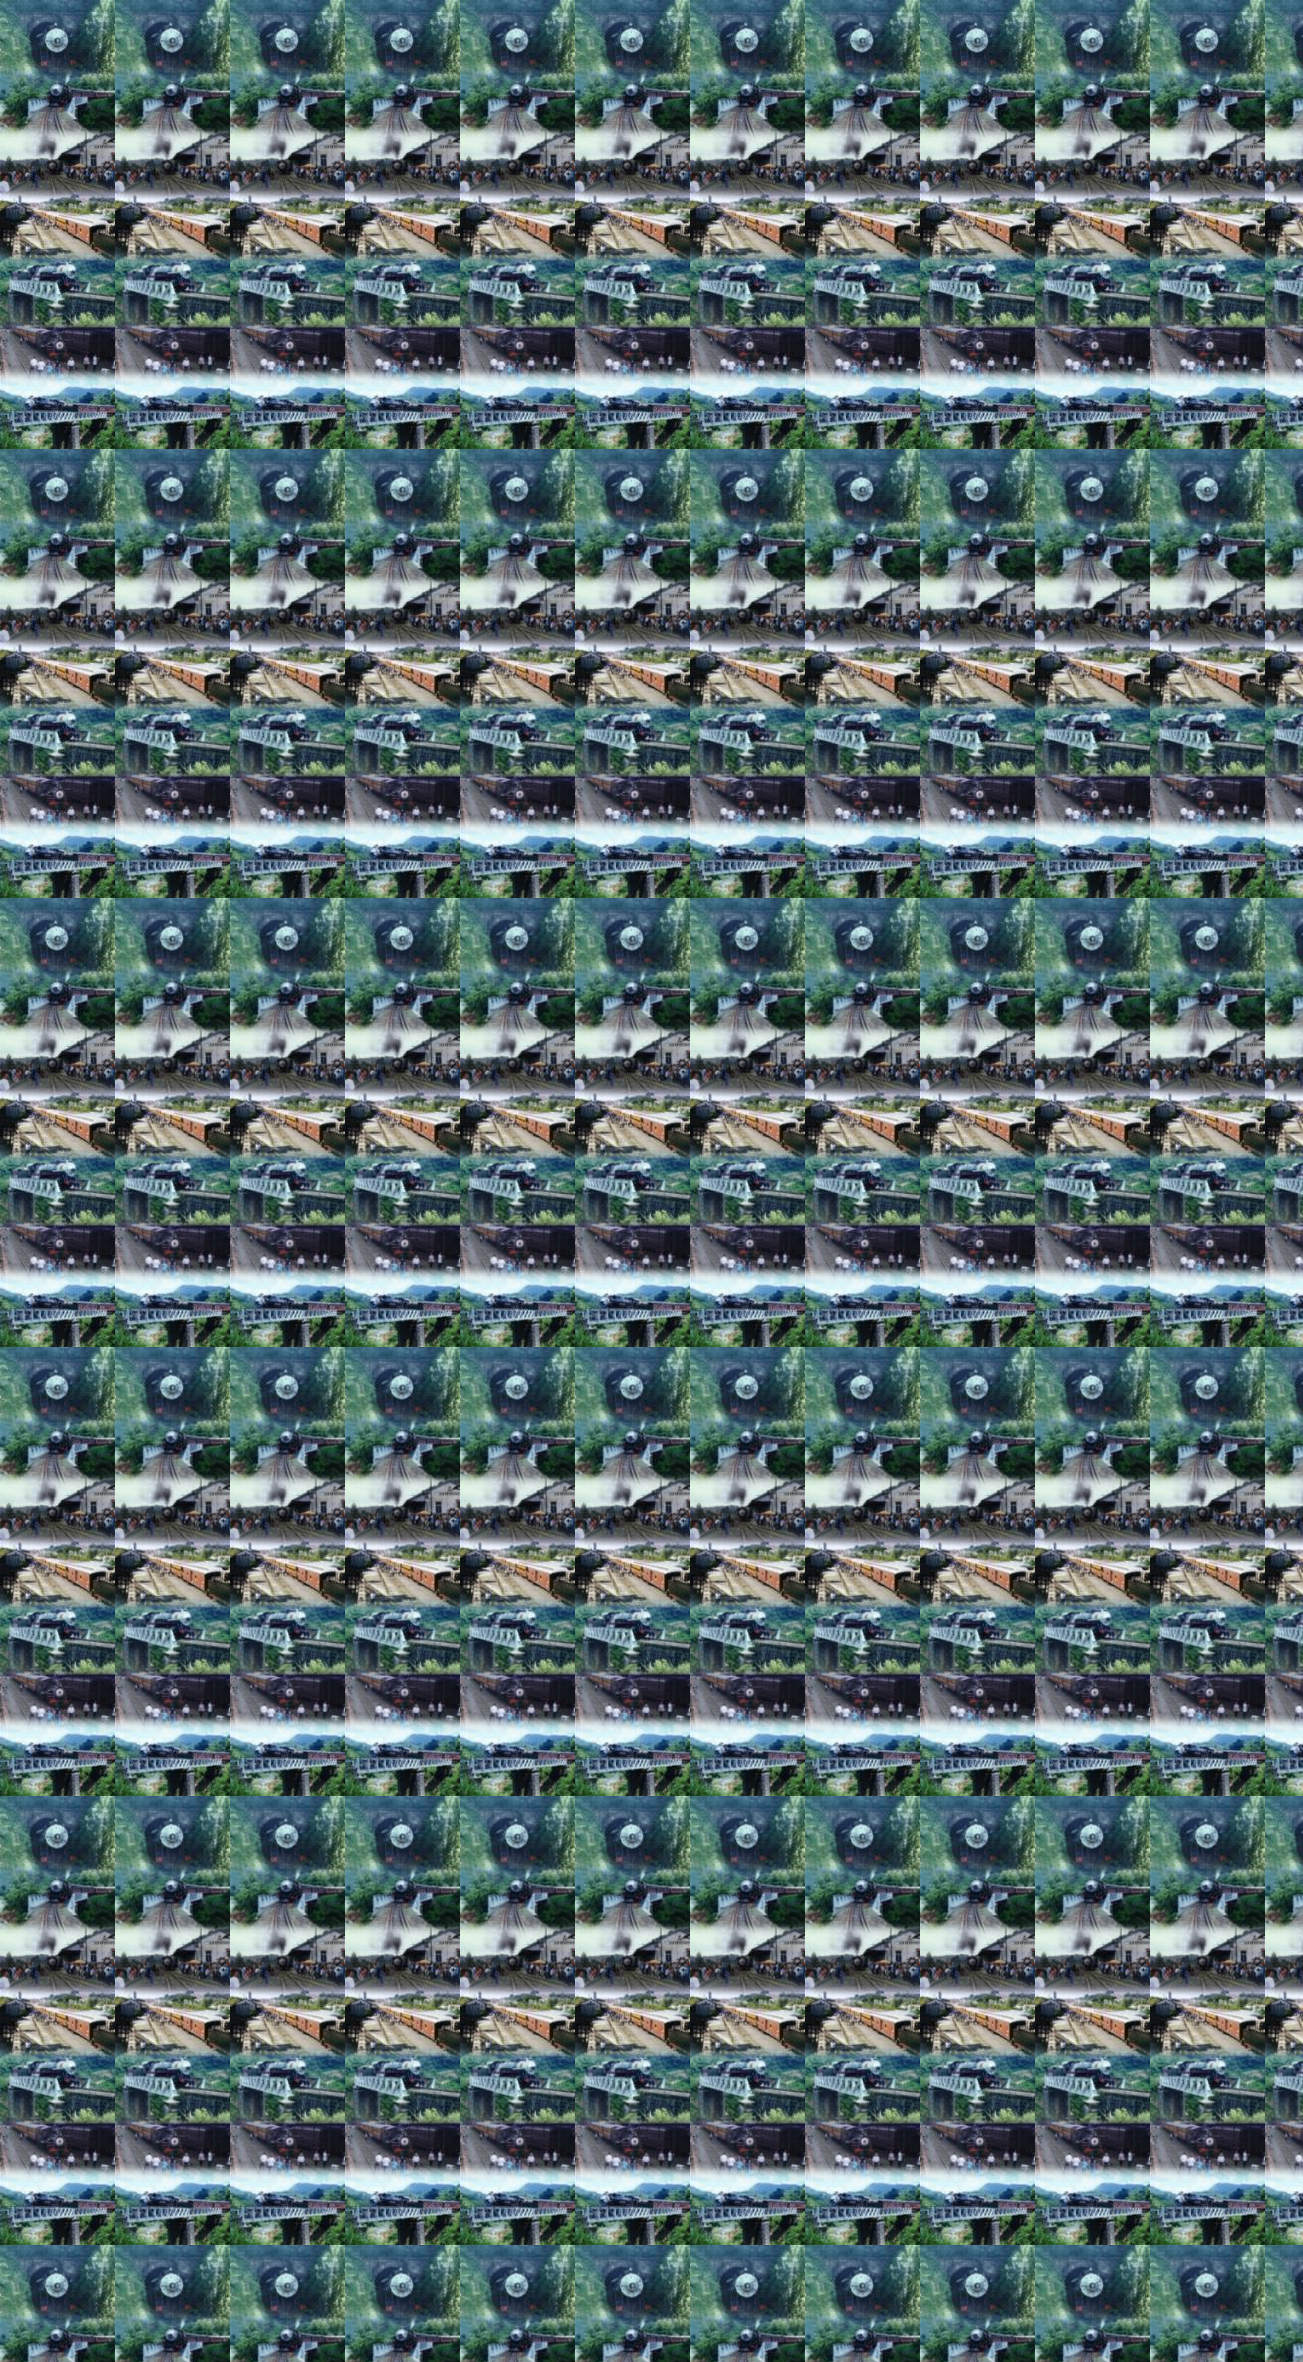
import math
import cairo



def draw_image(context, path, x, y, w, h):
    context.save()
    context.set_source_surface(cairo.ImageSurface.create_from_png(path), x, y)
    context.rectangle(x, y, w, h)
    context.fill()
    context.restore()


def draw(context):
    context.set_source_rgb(1, 1, 1)
    context.paint()
    draw_image(context, "images/1.png", 0, 0, 1303, 2362)


surface = cairo.ImageSurface(cairo.Format.RGB24, 1303, 2362)
context = cairo.Context(surface)
options = cairo.FontOptions()
options.set_hint_metrics(cairo.HintMetrics.OFF)
options.set_hint_style(cairo.HintStyle.NONE)
context.set_font_options(options)
context.set_miter_limit(4)
draw(context)
surface.write_to_png("out.png")
